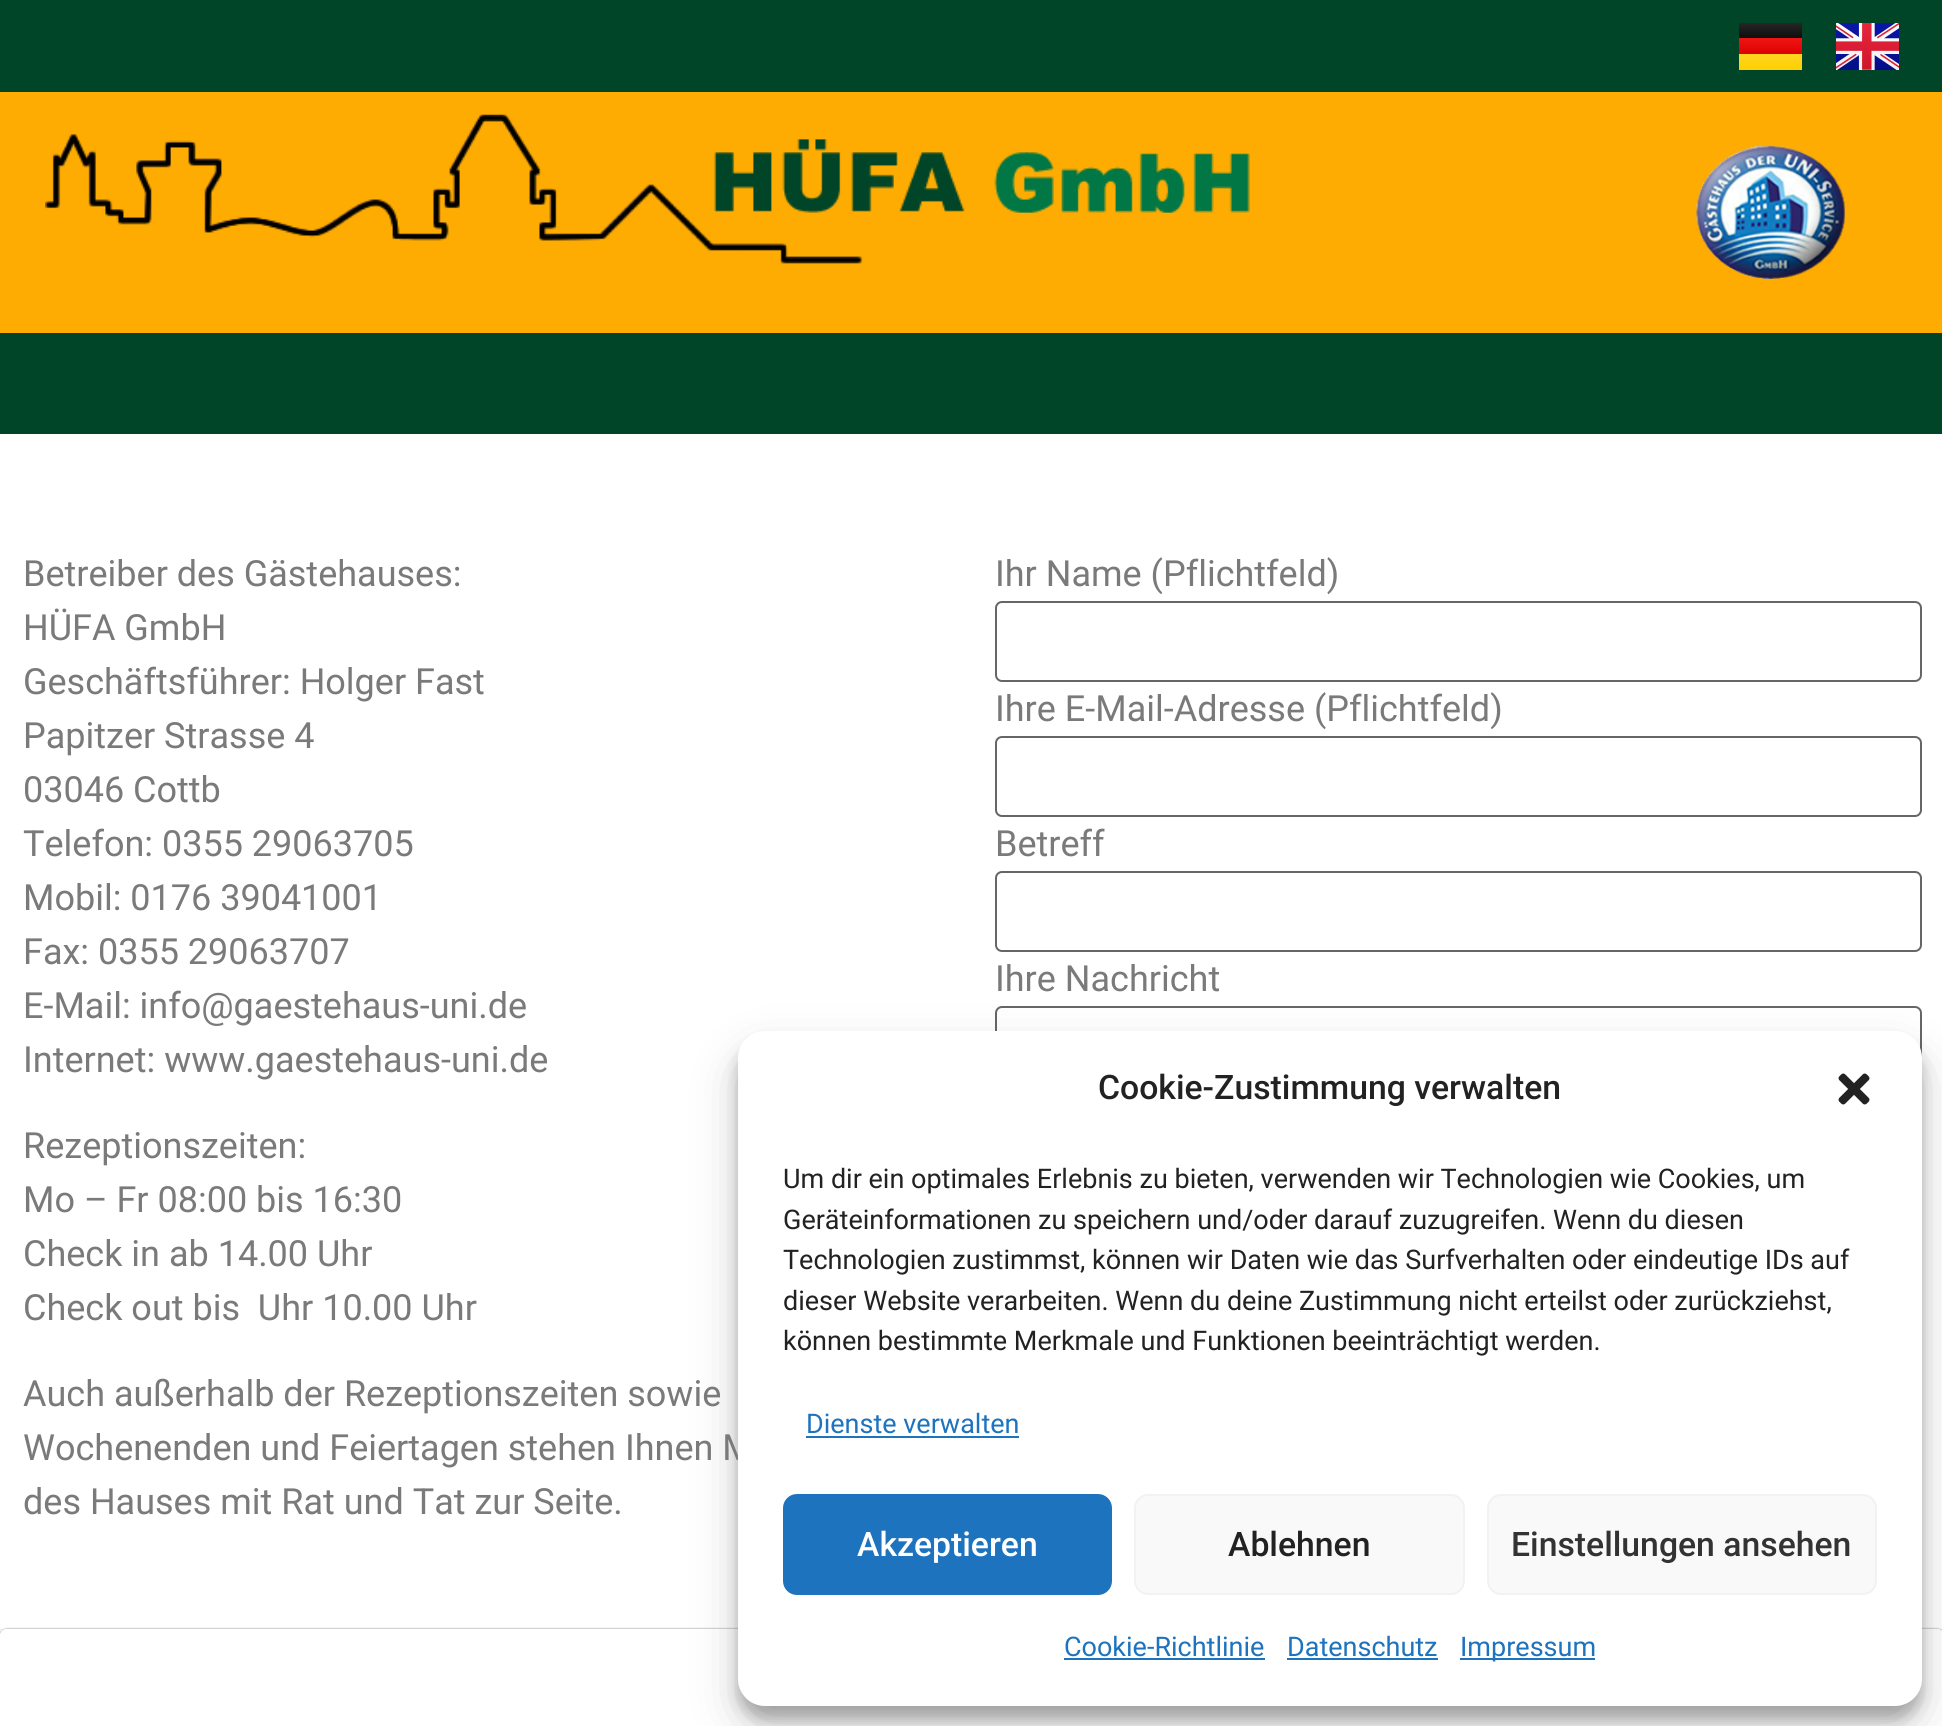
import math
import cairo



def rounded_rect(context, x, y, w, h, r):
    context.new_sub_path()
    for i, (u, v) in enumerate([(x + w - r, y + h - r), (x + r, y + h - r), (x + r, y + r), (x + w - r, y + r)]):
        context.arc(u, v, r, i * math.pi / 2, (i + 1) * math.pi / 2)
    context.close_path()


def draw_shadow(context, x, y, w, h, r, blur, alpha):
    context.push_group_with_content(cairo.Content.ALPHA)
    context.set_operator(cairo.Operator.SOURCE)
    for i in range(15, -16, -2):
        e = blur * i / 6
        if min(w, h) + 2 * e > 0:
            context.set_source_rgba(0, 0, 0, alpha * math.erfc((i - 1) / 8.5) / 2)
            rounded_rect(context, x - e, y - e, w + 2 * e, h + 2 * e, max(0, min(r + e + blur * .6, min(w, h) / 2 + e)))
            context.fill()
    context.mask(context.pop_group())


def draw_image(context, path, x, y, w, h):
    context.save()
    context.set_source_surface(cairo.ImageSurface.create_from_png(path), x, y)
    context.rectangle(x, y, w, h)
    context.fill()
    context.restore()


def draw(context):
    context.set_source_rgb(1, 1, 1)
    context.paint()
    context.set_source_rgb(0, 69 / 255, 40 / 255)
    context.rectangle(0, 0, 1942, 92)
    context.fill()
    gradient = cairo.LinearGradient(1770, 23, 1770, 38)
    gradient.add_color_stop_rgba(0, 38 / 255, 38 / 255, 38 / 255, 1)
    gradient.add_color_stop_rgba(1, 13 / 255, 13 / 255, 13 / 255, 1)
    context.set_source(gradient)
    context.rectangle(1739, 23, 63, 15)
    context.fill()
    gradient = cairo.LinearGradient(1770, 38, 1770, 54)
    gradient.add_color_stop_rgba(0, 240 / 255, 21 / 255, 21 / 255, 1)
    gradient.add_color_stop_rgba(1, 222 / 255, 0, 0, 1)
    context.set_source(gradient)
    context.rectangle(1739, 38, 63, 16)
    context.fill()
    gradient = cairo.LinearGradient(1770, 54, 1770, 70)
    gradient.add_color_stop_rgba(0, 1, 213 / 255, 33 / 255, 1)
    gradient.add_color_stop_rgba(1, 1, 207 / 255, 0, 1)
    context.set_source(gradient)
    context.rectangle(1739, 54, 63, 16)
    context.fill()
    draw_image(context, "images/1.png", 1836, 23, 63, 47)
    context.set_source_rgb(254 / 255, 172 / 255, 2 / 255)
    context.rectangle(0, 92, 1942, 241)
    context.fill()
    draw_image(context, "images/2.png", 45, 114, 1205, 150)
    draw_image(context, "images/3.png", 1696, 146, 149, 133)
    context.set_source_rgb(0, 69 / 255, 40 / 255)
    context.rectangle(0, 333, 1942, 101)
    context.fill()
    rounded_rect(context, 996, 602, 925, 79, 6)
    context.set_source_rgb(102 / 255, 102 / 255, 102 / 255)
    context.stroke()
    rounded_rect(context, 996, 737, 925, 79, 6)
    context.stroke()
    rounded_rect(context, 996, 872, 925, 79, 6)
    context.stroke()
    rounded_rect(context, 996, 1007, 925, 241, 6)
    context.stroke()
    context.save()
    context.rectangle(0, 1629, 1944, 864)
    context.clip()
    context.set_source_rgb(0, 0, 0)
    draw_shadow(context, 0, 1631, 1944, 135, 7, 11, 0.15)
    context.restore()
    context.save()
    context.set_fill_rule(cairo.FillRule.EVEN_ODD)
    context.new_path()
    context.move_to(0, 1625)
    context.line_to(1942, 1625)
    context.line_to(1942, 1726)
    context.line_to(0, 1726)
    context.close_path()
    context.move_to(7, 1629)
    context.line_to(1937, 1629)
    context.curve_to(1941, 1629, 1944, 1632, 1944, 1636)
    context.line_to(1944, 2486)
    context.curve_to(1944, 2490, 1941, 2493, 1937, 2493)
    context.line_to(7, 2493)
    context.curve_to(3, 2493, 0, 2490, 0, 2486)
    context.line_to(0, 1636)
    context.curve_to(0, 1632, 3, 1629, 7, 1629)
    context.close_path()
    context.clip()
    context.set_source_rgb(0, 0, 0)
    draw_shadow(context, 0, 1629, 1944, 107, 7, 1, 0.5)
    context.restore()
    context.set_source_rgb(1, 1, 1)
    rounded_rect(context, 0, 1629, 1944, 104, 7)
    context.fill()
    context.set_source_rgb(0, 0, 0)
    draw_shadow(context, 738, 1044, 1184, 675, 27, 7, 0.23)
    draw_shadow(context, 738, 1053, 1184, 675, 27, 22.5, 0.19)
    context.select_font_face("Roboto")
    context.set_font_size(36)
    context.set_source_rgb(122 / 255, 122 / 255, 122 / 255)
    context.move_to(23, 586)
    context.show_text("Betreiber des Gästehauses:")
    context.move_to(23, 640)
    context.show_text("HÜFA GmbH")
    context.move_to(23, 694)
    context.show_text("Geschäftsführer: Holger Fast")
    context.move_to(23, 748)
    context.show_text("Papitzer Strasse 4")
    context.move_to(23, 802)
    context.show_text("03046 Cottb")
    context.move_to(23, 856)
    context.show_text("Telefon: 0355 29063705")
    context.move_to(23, 910)
    context.show_text("Mobil: 0176 39041001")
    context.move_to(23, 964)
    context.show_text("Fax: 0355 29063707")
    context.move_to(23, 1018)
    context.show_text("E-Mail: info@gaestehaus-uni.de")
    context.move_to(23, 1072)
    context.show_text("Internet: www.gaestehaus-uni.de")
    context.move_to(23, 1158)
    context.show_text("Rezeptionszeiten:")
    context.move_to(23, 1212)
    context.show_text("Mo – Fr 08:00 bis 16:30")
    context.move_to(23, 1266)
    context.show_text("Check in ab 14.00 Uhr")
    context.move_to(23, 1320)
    context.show_text("Check out bis  Uhr 10.00 Uhr")
    context.move_to(23, 1406)
    context.show_text("Auch außerhalb der Rezeptionszeiten sowie")
    context.move_to(23, 1460)
    context.show_text("Wochenenden und Feiertagen stehen Ihnen M")
    context.move_to(23, 1514)
    context.show_text("des Hauses mit Rat und Tat zur Seite.")
    context.move_to(995, 586)
    context.show_text("Ihr Name (Pflichtfeld)")
    context.move_to(995, 721)
    context.show_text("Ihre E-Mail-Adresse (Pflichtfeld)")
    context.move_to(995, 856)
    context.show_text("Betreff")
    context.move_to(995, 991)
    context.show_text("Ihre Nachricht")
    context.set_source_rgb(1, 1, 1)
    rounded_rect(context, 738, 1031, 1184, 675, 27)
    context.fill()
    context.select_font_face("Roboto Medium")
    context.set_font_size(33.75)
    context.set_source_rgb(34 / 255, 34 / 255, 34 / 255)
    context.move_to(1098, 1099)
    context.show_text("Cookie-Zustimmung verwalten")
    draw_image(context, "images/4.png", 1838, 1073, 32, 32)
    context.select_font_face("Roboto")
    context.set_font_size(27)
    context.move_to(783, 1188)
    context.show_text("Um dir ein optimales Erlebnis zu bieten, verwenden wir Technologien wie Cookies, um")
    context.move_to(783, 1229)
    context.show_text("Geräteinformationen zu speichern und/oder darauf zuzugreifen. Wenn du diesen")
    context.move_to(783, 1269)
    context.show_text("Technologien zustimmst, können wir Daten wie das Surfverhalten oder eindeutige IDs auf")
    context.move_to(783, 1310)
    context.show_text("dieser Website verarbeiten. Wenn du deine Zustimmung nicht erteilst oder zurückziehst,")
    context.move_to(783, 1350)
    context.show_text("können bestimmte Merkmale und Funktionen beeinträchtigt werden.")
    context.set_source_rgb(30 / 255, 115 / 255, 190 / 255)
    context.move_to(806, 1433)
    context.show_text("Dienste verwalten")
    context.rectangle(806, 1436, 213, 2)
    context.fill()
    rounded_rect(context, 784, 1495, 327, 99, 13)
    context.fill_preserve()
    context.stroke()
    context.select_font_face("Roboto Medium")
    context.set_font_size(33.75)
    context.set_source_rgb(1, 1, 1)
    context.move_to(857, 1556)
    context.show_text("Akzeptieren")
    context.set_source_rgb(249 / 255, 249 / 255, 249 / 255)
    rounded_rect(context, 1135, 1495, 329, 99, 13)
    context.fill_preserve()
    context.set_source_rgb(242 / 255, 242 / 255, 242 / 255)
    context.stroke()
    context.set_source_rgb(34 / 255, 34 / 255, 34 / 255)
    context.move_to(1228, 1556)
    context.show_text("Ablehnen")
    context.set_source_rgb(249 / 255, 249 / 255, 249 / 255)
    rounded_rect(context, 1488, 1495, 388, 99, 13)
    context.fill_preserve()
    context.set_source_rgb(242 / 255, 242 / 255, 242 / 255)
    context.stroke()
    context.set_source_rgb(51 / 255, 51 / 255, 51 / 255)
    context.move_to(1511, 1556)
    context.show_text("Einstellungen ansehen")
    context.select_font_face("Roboto")
    context.set_font_size(27)
    context.set_source_rgb(30 / 255, 115 / 255, 190 / 255)
    context.move_to(1064, 1656)
    context.show_text("Cookie-Richtlinie")
    context.rectangle(1064, 1658, 201, 2)
    context.fill()
    context.move_to(1287, 1656)
    context.show_text("Datenschutz")
    context.rectangle(1287, 1658, 151, 2)
    context.fill()
    context.rectangle(1460, 1658, 135, 2)
    context.fill()
    context.move_to(1460, 1656)
    context.show_text("Impressum")


surface = cairo.ImageSurface(cairo.Format.RGB24, 1942, 1726)
context = cairo.Context(surface)
options = cairo.FontOptions()
options.set_hint_metrics(cairo.HintMetrics.OFF)
options.set_hint_style(cairo.HintStyle.NONE)
context.set_font_options(options)
context.set_miter_limit(4)
draw(context)
surface.write_to_png("out.png")
